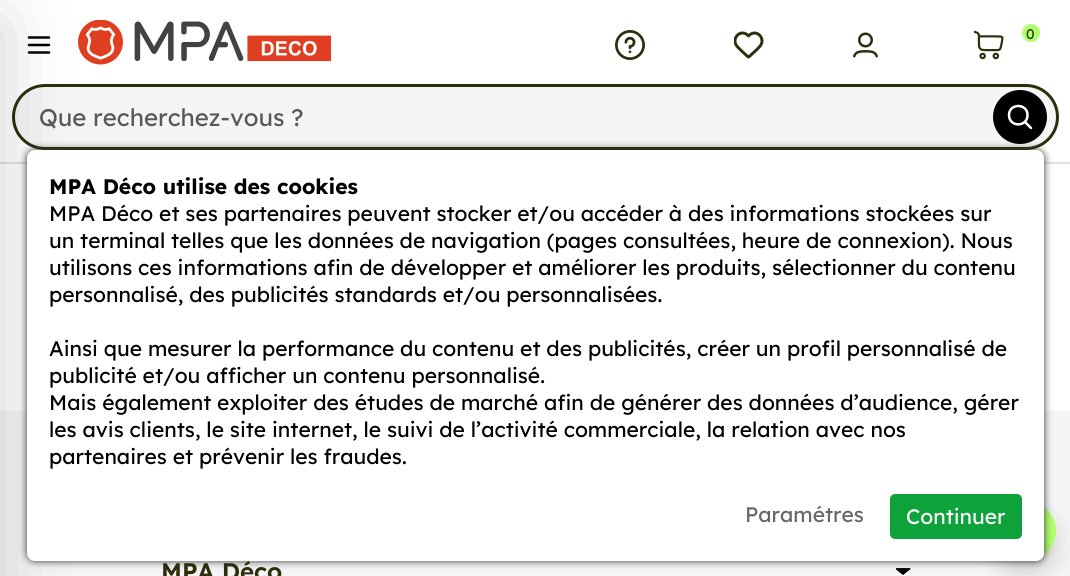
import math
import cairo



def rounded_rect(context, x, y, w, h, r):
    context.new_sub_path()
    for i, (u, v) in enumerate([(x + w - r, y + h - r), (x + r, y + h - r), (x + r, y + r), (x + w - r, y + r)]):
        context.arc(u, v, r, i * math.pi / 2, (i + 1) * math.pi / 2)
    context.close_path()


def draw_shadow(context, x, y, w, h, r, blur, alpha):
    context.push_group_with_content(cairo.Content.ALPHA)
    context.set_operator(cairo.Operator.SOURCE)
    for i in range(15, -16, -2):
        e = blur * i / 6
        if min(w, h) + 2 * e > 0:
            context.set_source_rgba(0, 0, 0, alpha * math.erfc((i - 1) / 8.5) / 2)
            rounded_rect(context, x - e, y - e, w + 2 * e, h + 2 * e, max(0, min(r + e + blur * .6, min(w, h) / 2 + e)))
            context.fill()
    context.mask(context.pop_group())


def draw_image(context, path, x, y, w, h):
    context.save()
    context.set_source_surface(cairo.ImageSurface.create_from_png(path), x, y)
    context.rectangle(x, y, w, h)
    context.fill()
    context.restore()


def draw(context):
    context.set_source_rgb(1, 1, 1)
    context.paint()
    context.set_source_rgb(222 / 255, 226 / 255, 230 / 255)
    context.rectangle(0, 162, 1070, 2)
    context.fill()
    context.new_path()
    context.move_to(29, 37.5)
    context.line_to(49, 37.5)
    context.move_to(29, 45)
    context.line_to(49, 45)
    context.move_to(29, 52.5)
    context.line_to(49, 52.5)
    context.set_source_rgb(0, 0, 0)
    context.set_line_width(2.5)
    context.set_line_cap(cairo.LineCap.ROUND)
    context.set_line_join(cairo.LineJoin.ROUND)
    context.stroke()
    draw_image(context, "images/1.png", 78, 20, 254, 45)
    context.set_source_rgb(245 / 255, 245 / 255, 245 / 255)
    rounded_rect(context, 13.5, 85.5, 1044, 63, 31.5)
    context.fill_preserve()
    context.set_source_rgb(47 / 255, 46 / 255, 12 / 255)
    context.set_line_width(3)
    context.set_line_cap(cairo.LineCap.BUTT)
    context.set_line_join(cairo.LineJoin.MITER)
    context.stroke()
    context.set_source_rgb(245 / 255, 245 / 255, 245 / 255)
    context.rectangle(0, 411, 1070, 165)
    context.fill()
    context.set_source_rgb(0, 0, 0)
    draw_shadow(context, -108, 24, 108, 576, 0, 36, 0.18)
    draw_image(context, "images/2.png", 615, 30, 30, 30)
    draw_image(context, "images/3.png", 734, 31, 30, 28)
    draw_image(context, "images/4.png", 853, 32, 25, 26)
    draw_image(context, "images/5.png", 974, 30, 30, 30)
    context.set_source_rgb(174 / 255, 1, 110 / 255)
    context.arc(1031, 33, 9, 0, 2 * math.pi)
    context.fill()
    context.set_source_rgb(0, 0, 0)
    context.arc(1020, 117, 27, 0, 2 * math.pi)
    context.fill()
    context.new_path()
    context.move_to(1025, 122)
    context.line_to(1031, 128)
    context.move_to(1027.5, 115)
    context.curve_to(1027.5, 127.5, 1009, 127.5, 1009, 115)
    context.curve_to(1009, 103, 1027.5, 103, 1027.5, 115)
    context.close_path()
    context.set_source_rgb(1, 1, 1)
    context.set_line_width(2.5)
    context.set_line_cap(cairo.LineCap.ROUND)
    context.set_line_join(cairo.LineJoin.ROUND)
    context.stroke()
    draw_image(context, "images/6.png", 896, 568, 15, 7)
    context.set_source_rgb(0, 0, 0)
    draw_shadow(context, 996, 513, 60, 60, 30, 12, 0.15)
    context.set_source_rgb(174 / 255, 1, 110 / 255)
    context.arc(1026, 531, 30, 0, 2 * math.pi)
    context.fill()
    context.set_source_rgb(49 / 255, 49 / 255, 49 / 255)
    draw_shadow(context, 27, 150, 1017, 411, 8, 4, 1)
    context.select_font_face("Lexend")
    context.set_font_size(14)
    context.set_source_rgb(47 / 255, 46 / 255, 12 / 255)
    context.move_to(1026, 39)
    context.show_text("0")
    context.set_font_size(24)
    context.set_source_rgb(86 / 255, 89 / 255, 92 / 255)
    context.move_to(39, 126)
    context.show_text("Que recherchez-vous ?")
    context.select_font_face("Lexend SemiBold")
    context.set_source_rgb(47 / 255, 46 / 255, 12 / 255)
    context.move_to(161, 580)
    context.show_text("MPA Déco")
    context.set_source_rgb(1, 1, 1)
    rounded_rect(context, 27, 150, 1017, 411, 8)
    context.fill()
    context.select_font_face("Lexend", cairo.FontSlant.NORMAL, cairo.FontWeight.BOLD)
    context.set_font_size(21)
    context.set_source_rgb(0, 0, 0)
    context.move_to(49, 194)
    context.show_text("MPA Déco utilise des cookies")
    context.select_font_face("Lexend")
    context.move_to(49, 464)
    context.show_text("partenaires et prévenir les fraudes.")
    context.move_to(49, 437)
    context.show_text("les avis clients, le site internet, le suivi de l’activité commerciale, la relation avec nos")
    context.move_to(49, 410)
    context.show_text("Mais également exploiter des études de marché afin de générer des données d’audience, gérer")
    context.move_to(49, 383)
    context.show_text("publicité et/ou afficher un contenu personnalisé.")
    context.move_to(49, 356)
    context.show_text("Ainsi que mesurer la performance du contenu et des publicités, créer un profil personnalisé de")
    context.move_to(49, 302)
    context.show_text("personnalisé, des publicités standards et/ou personnalisées.")
    context.move_to(49, 275)
    context.show_text("utilisons ces informations afin de développer et améliorer les produits, sélectionner du contenu")
    context.move_to(49, 248)
    context.show_text("un terminal telles que les données de navigation (pages consultées, heure de connexion). Nous")
    context.move_to(49, 221)
    context.show_text("MPA Déco et ses partenaires peuvent stocker et/ou accéder à des informations stockées sur")
    context.set_source_rgb(102 / 255, 102 / 255, 102 / 255)
    context.move_to(745, 522)
    context.show_text("Paramétres")
    context.set_source_rgb(14 / 255, 162 / 255, 59 / 255)
    rounded_rect(context, 891, 495, 130, 43, 4)
    context.fill_preserve()
    context.set_line_width(2)
    context.set_line_cap(cairo.LineCap.BUTT)
    context.set_line_join(cairo.LineJoin.MITER)
    context.stroke()
    context.set_source_rgb(1, 1, 1)
    context.move_to(906, 524)
    context.show_text("Continuer")


surface = cairo.ImageSurface(cairo.Format.RGB24, 1070, 576)
context = cairo.Context(surface)
options = cairo.FontOptions()
options.set_hint_metrics(cairo.HintMetrics.OFF)
options.set_hint_style(cairo.HintStyle.NONE)
context.set_font_options(options)
context.set_miter_limit(4)
draw(context)
surface.write_to_png("out.png")
